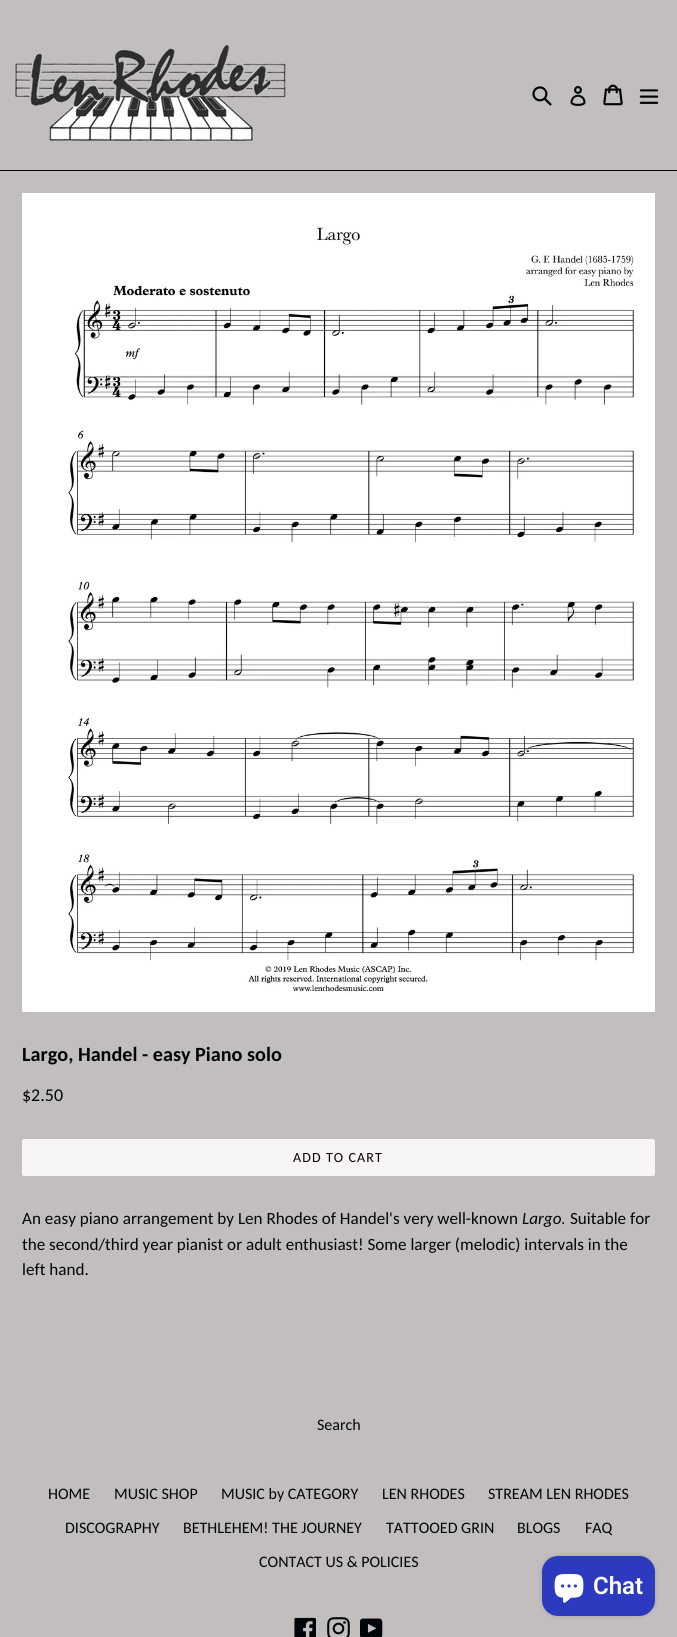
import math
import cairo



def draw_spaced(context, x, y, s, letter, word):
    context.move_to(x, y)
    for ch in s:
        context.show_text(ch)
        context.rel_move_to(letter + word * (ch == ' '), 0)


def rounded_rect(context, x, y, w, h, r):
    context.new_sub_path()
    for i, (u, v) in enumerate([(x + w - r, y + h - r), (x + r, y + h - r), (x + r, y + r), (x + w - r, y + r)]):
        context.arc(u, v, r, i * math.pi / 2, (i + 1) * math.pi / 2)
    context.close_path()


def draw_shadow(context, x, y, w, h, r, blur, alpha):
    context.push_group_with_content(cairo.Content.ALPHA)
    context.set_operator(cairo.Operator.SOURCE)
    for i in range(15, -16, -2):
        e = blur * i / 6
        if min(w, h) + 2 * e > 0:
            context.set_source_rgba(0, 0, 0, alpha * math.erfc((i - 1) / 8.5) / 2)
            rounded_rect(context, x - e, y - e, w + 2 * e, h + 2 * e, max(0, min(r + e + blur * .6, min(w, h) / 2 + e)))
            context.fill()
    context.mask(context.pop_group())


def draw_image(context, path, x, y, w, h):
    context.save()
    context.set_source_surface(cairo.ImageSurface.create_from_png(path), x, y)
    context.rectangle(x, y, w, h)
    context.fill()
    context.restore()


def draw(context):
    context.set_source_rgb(194 / 255, 190 / 255, 190 / 255)
    context.paint()
    context.set_source_rgb(0, 5 / 255, 9 / 255)
    context.rectangle(0, 170, 677, 1)
    context.fill()
    draw_image(context, "images/1.png", 14, 44, 272, 98)
    draw_image(context, "images/2.png", 532, 86, 20, 20)
    draw_image(context, "images/3.png", 570, 86, 16, 20)
    draw_image(context, "images/4.png", 603, 84, 20, 22)
    draw_image(context, "images/5.png", 639, 89, 20, 15)
    draw_image(context, "images/6.png", 22, 193, 633, 819)
    context.set_source_rgb(247 / 255, 244 / 255, 244 / 255)
    rounded_rect(context, 22, 1139, 633, 37, 2)
    context.fill()
    draw_image(context, "images/7.png", 294, 1617, 22, 20)
    draw_image(context, "images/8.png", 327, 1617, 23, 20)
    draw_image(context, "images/9.png", 360, 1618, 23, 19)
    context.set_source_rgb(0, 0, 0)
    draw_shadow(context, 542, 1556, 113, 60, 16, 2.5, 0.15)
    context.set_source_rgb(43 / 255, 58 / 255, 190 / 255)
    rounded_rect(context, 542, 1556, 113, 60, 16)
    context.fill()
    draw_image(context, "images/10.png", 554, 1574, 30, 29)
    context.select_font_face("Carlito", cairo.FontSlant.NORMAL, cairo.FontWeight.BOLD)
    context.set_font_size(20.2)
    context.set_source_rgb(0, 5 / 255, 9 / 255)
    context.move_to(22, 1061)
    context.show_text("Largo, Handel - easy Piano solo")
    context.select_font_face("Carlito")
    context.set_font_size(18)
    context.move_to(22, 1101)
    context.show_text("$2.50")
    context.set_font_size(14)
    context.set_source_rgb(12 / 255, 0, 13 / 255)
    draw_spaced(context, 293, 1162, "ADD TO CART", 1.1, 0)
    context.set_font_size(17.1)
    context.set_source_rgb(0, 5 / 255, 9 / 255)
    context.move_to(22, 1224)
    context.show_text("An easy piano arrangement by Len Rhodes of Handel's very well-known")
    context.select_font_face("Carlito", cairo.FontSlant.ITALIC)
    context.move_to(522, 1224)
    context.show_text("Largo.")
    context.select_font_face("Carlito")
    context.move_to(570, 1224)
    context.show_text("Suitable for")
    context.move_to(22, 1250)
    context.show_text("the second/third year pianist or adult enthusiast! Some larger (melodic) intervals in the")
    context.move_to(22, 1275)
    context.show_text("left hand.")
    context.set_font_size(16)
    context.move_to(317, 1430)
    context.show_text("Search")
    context.move_to(48, 1499)
    context.show_text("HOME")
    context.move_to(114, 1499)
    context.show_text("MUSIC SHOP")
    context.move_to(221, 1499)
    context.show_text("MUSIC by CATEGORY")
    context.move_to(382, 1499)
    context.show_text("LEN RHODES")
    context.move_to(488, 1499)
    context.show_text("STREAM LEN RHODES")
    context.move_to(65, 1533)
    context.show_text("DISCOGRAPHY")
    context.move_to(183, 1533)
    context.show_text("BETHLEHEM! THE JOURNEY")
    context.move_to(386, 1533)
    context.show_text("TATTOOED GRIN")
    context.move_to(517, 1533)
    context.show_text("BLOGS")
    context.move_to(585, 1533)
    context.show_text("FAQ")
    context.move_to(259, 1567)
    context.show_text("CONTACT US & POLICIES")
    context.select_font_face("Roboto SemiBold")
    context.set_font_size(24)
    context.set_source_rgb(1, 1, 1)
    context.move_to(593, 1594)
    context.show_text("Chat")


surface = cairo.ImageSurface(cairo.Format.RGB24, 677, 1637)
context = cairo.Context(surface)
options = cairo.FontOptions()
options.set_hint_metrics(cairo.HintMetrics.OFF)
options.set_hint_style(cairo.HintStyle.NONE)
context.set_font_options(options)
context.set_miter_limit(4)
draw(context)
surface.write_to_png("out.png")
